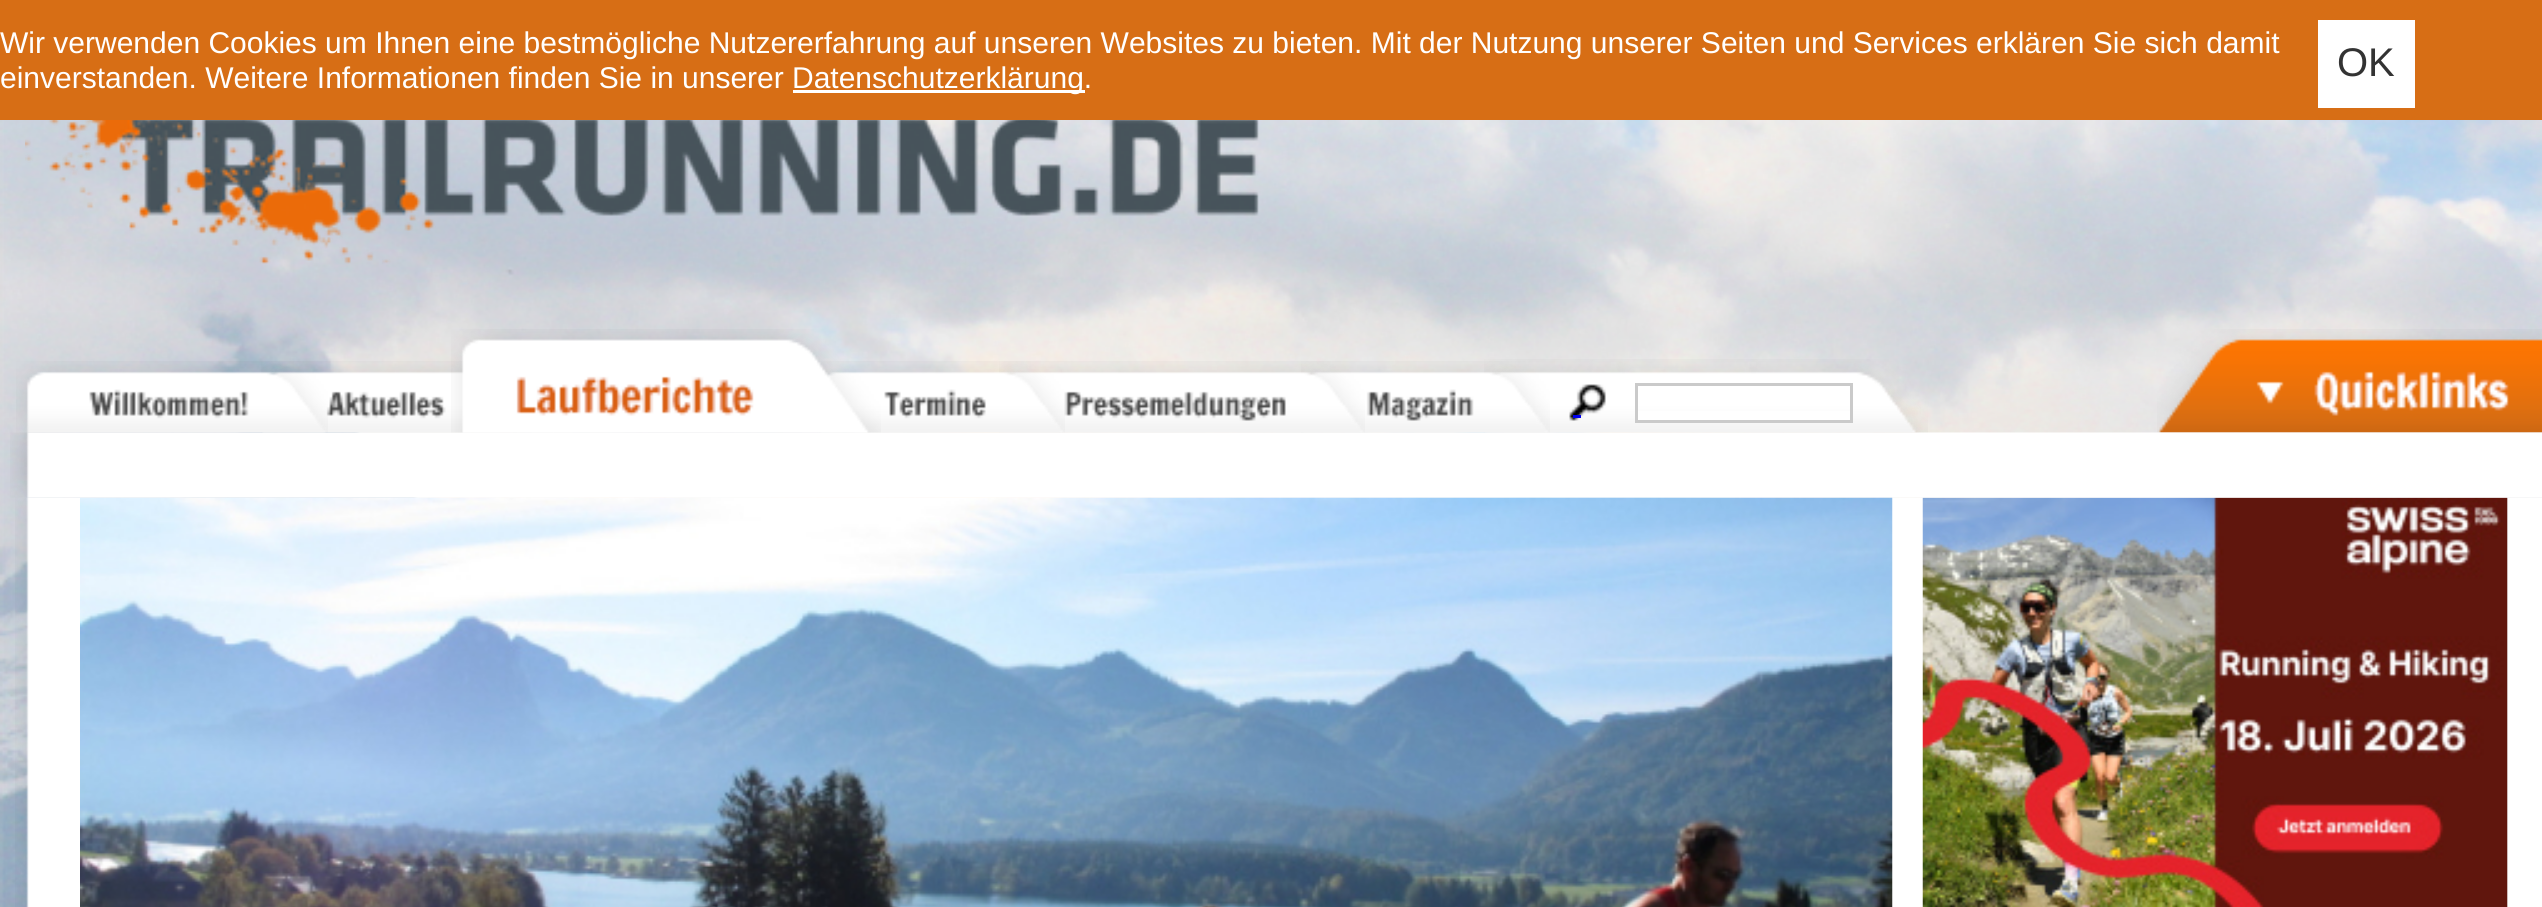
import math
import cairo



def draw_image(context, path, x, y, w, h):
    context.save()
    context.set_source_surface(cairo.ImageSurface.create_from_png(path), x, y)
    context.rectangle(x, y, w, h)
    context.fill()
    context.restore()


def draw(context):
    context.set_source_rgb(1, 1, 1)
    context.paint()
    draw_image(context, "images/1.png", 0, 120, 4, 787)
    context.set_source_rgb(215 / 255, 110 / 255, 21 / 255)
    context.rectangle(0, 0, 2542, 120)
    context.fill()
    context.set_source_rgb(1, 1, 1)
    context.rectangle(793, 90, 292, 3)
    context.fill()
    context.rectangle(2318, 20, 97, 88)
    context.fill()
    draw_image(context, "images/2.png", 0, 120, 2542, 787)
    draw_image(context, "images/3.png", 25, 120, 1234, 144)
    draw_image(context, "images/11.png", 2157, 329, 385, 104)
    draw_image(context, "images/13.png", 15, 497, 2527, 410)
    context.set_source_rgb(241 / 255, 241 / 255, 241 / 255)
    context.rectangle(2507, 498, 1, 409)
    context.fill()
    draw_image(context, "images/15.png", 1922, 497, 586, 410)
    draw_image(context, "images/12.png", 10, 432, 2532, 66)
    draw_image(context, "images/5.png", 261, 361, 260, 72)
    draw_image(context, "images/4.png", 16, 361, 312, 72)
    draw_image(context, "images/10.png", 1484, 359, 444, 74)
    draw_image(context, "images/9.png", 1301, 361, 249, 72)
    draw_image(context, "images/8.png", 999, 361, 366, 72)
    draw_image(context, "images/7.png", 819, 361, 246, 72)
    draw_image(context, "images/6.png", 451, 329, 430, 104)
    context.set_source_rgb(0, 0, 238 / 255)
    context.rectangle(1573, 415, 8, 3)
    context.fill()
    context.set_source_rgb(1, 1, 1)
    context.rectangle(1638, 411, 212, 9)
    context.fill()
    context.rectangle(1636.5, 384.5, 215, 37)
    context.set_source_rgb(202 / 255, 202 / 255, 202 / 255)
    context.set_line_width(3)
    context.stroke()
    draw_image(context, "images/14.png", 80, 497, 1813, 410)
    context.select_font_face("Liberation Sans")
    context.set_font_size(30)
    context.set_source_rgb(1, 1, 1)
    context.move_to(0, 53)
    context.show_text("Wir verwenden Cookies um Ihnen eine bestmögliche Nutzererfahrung auf unseren Websites zu bieten. Mit der Nutzung unserer Seiten und Services erklären Sie sich damit")
    context.move_to(0, 88)
    context.show_text("einverstanden. Weitere Informationen finden Sie in unserer")
    context.move_to(792, 88)
    context.show_text("Datenschutzerklärung.")
    context.set_font_size(40)
    context.set_source_rgb(51 / 255, 51 / 255, 51 / 255)
    context.move_to(2337, 76)
    context.show_text("OK")


surface = cairo.ImageSurface(cairo.Format.RGB24, 2542, 907)
context = cairo.Context(surface)
options = cairo.FontOptions()
options.set_hint_metrics(cairo.HintMetrics.OFF)
options.set_hint_style(cairo.HintStyle.NONE)
context.set_font_options(options)
context.set_miter_limit(4)
draw(context)
surface.write_to_png("out.png")
